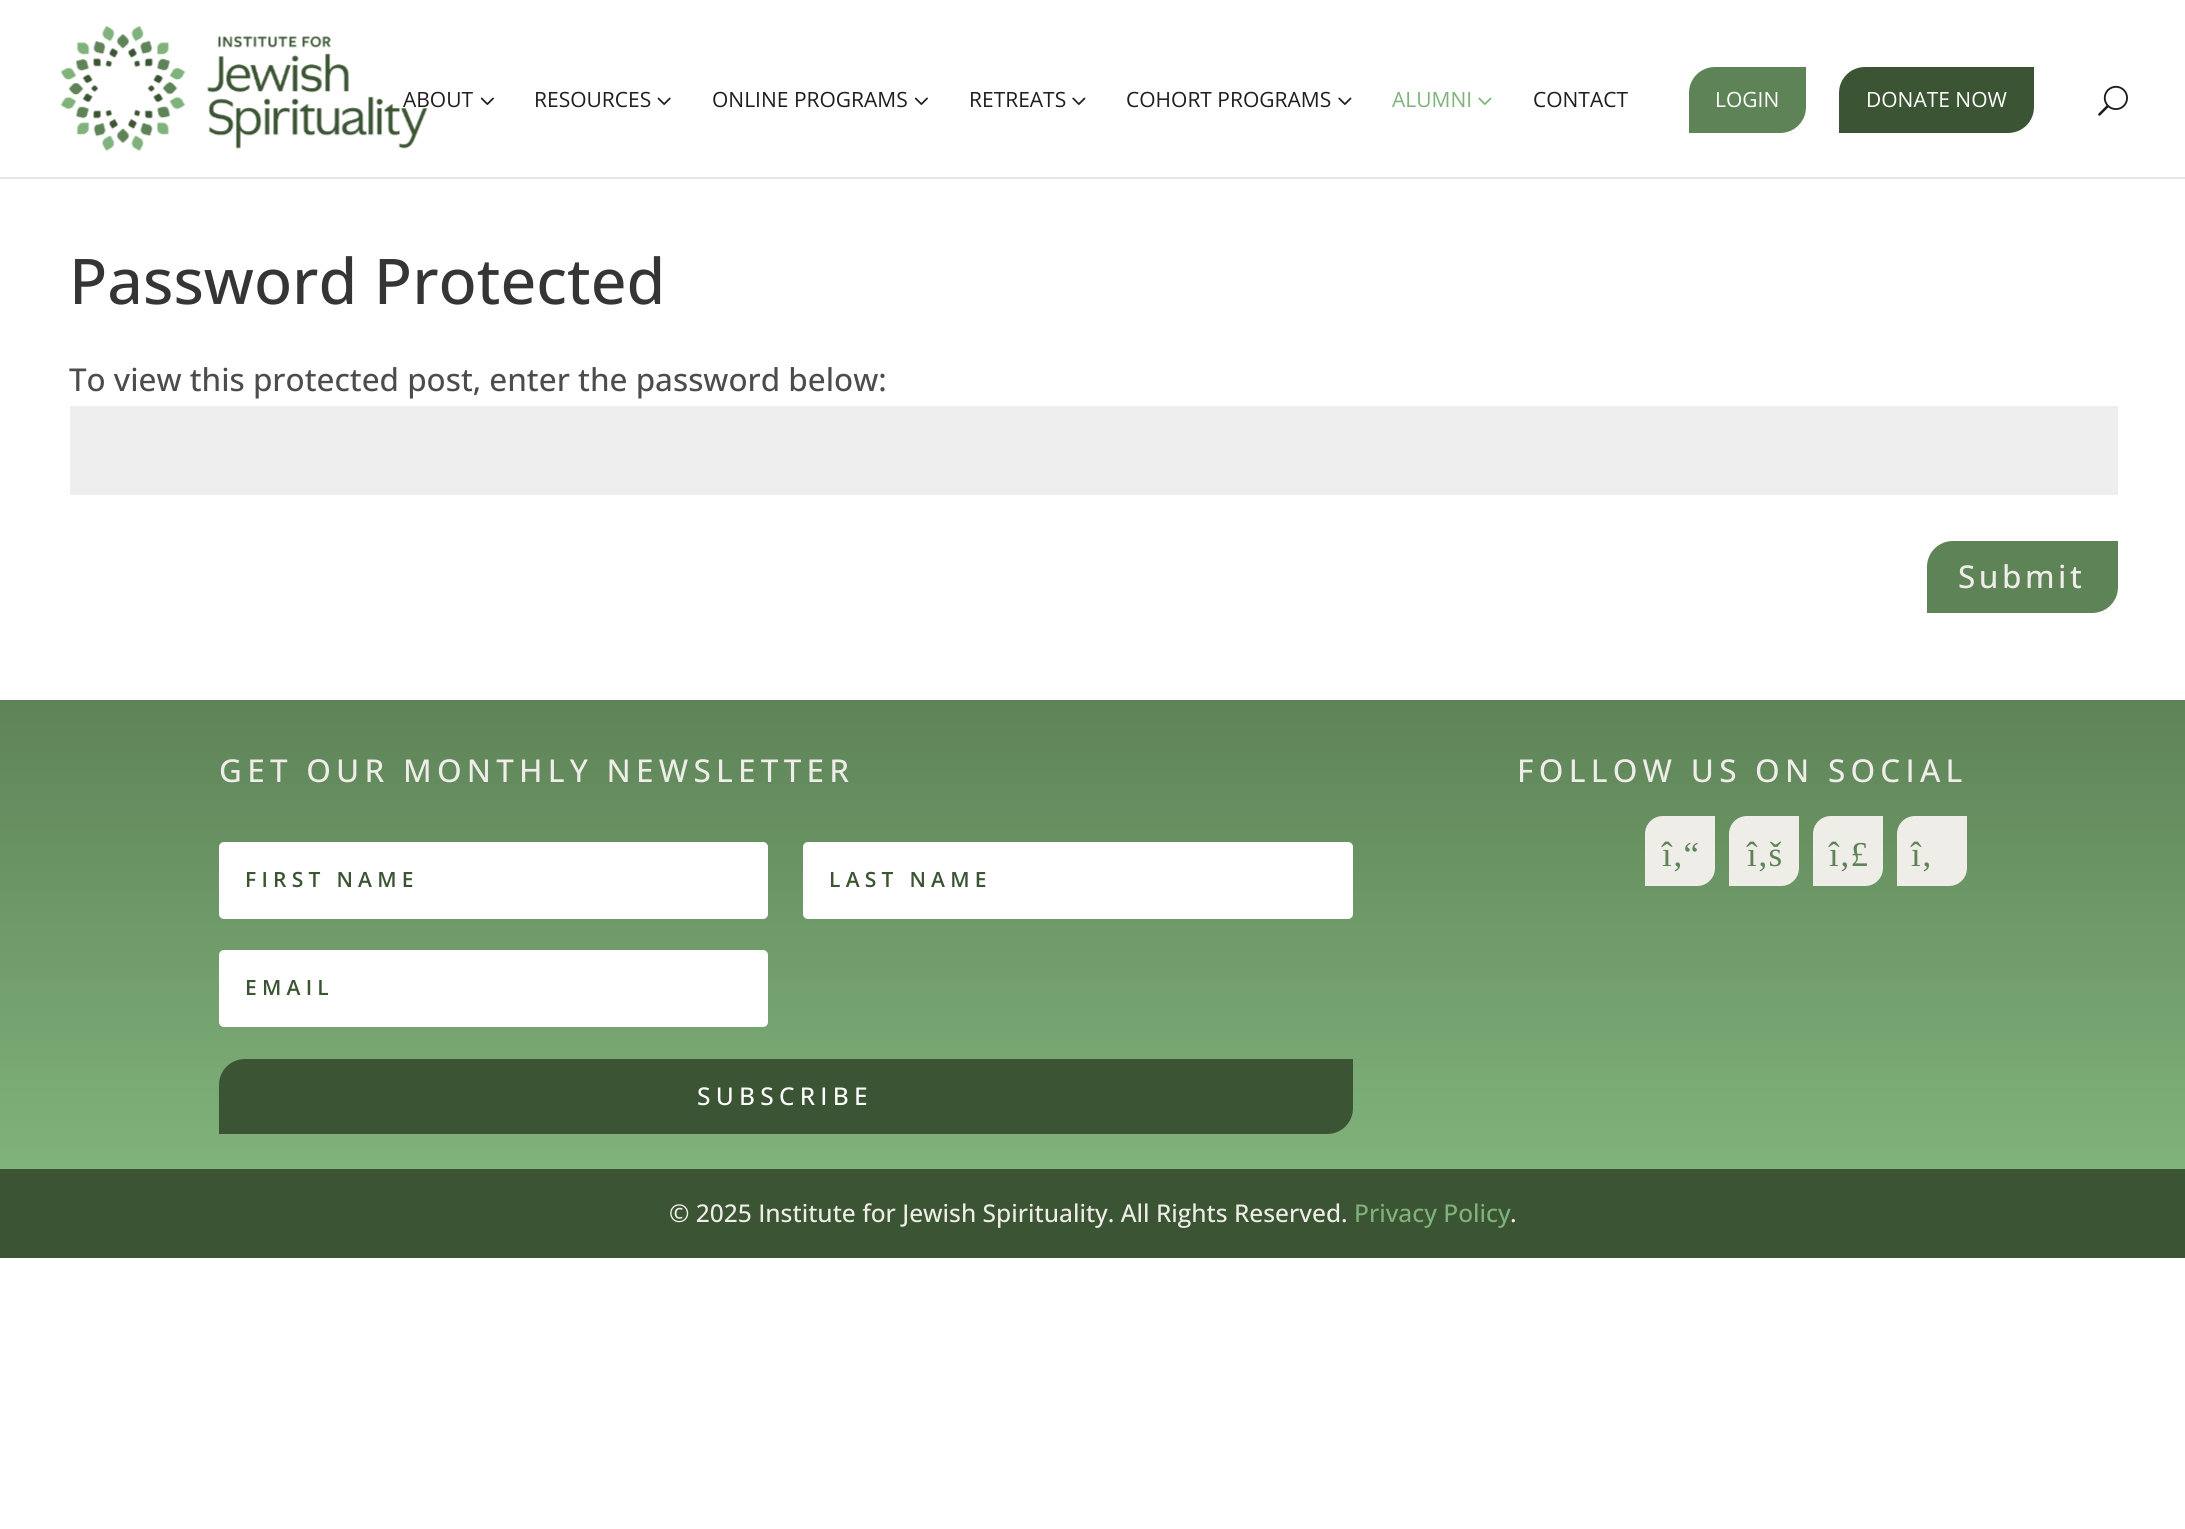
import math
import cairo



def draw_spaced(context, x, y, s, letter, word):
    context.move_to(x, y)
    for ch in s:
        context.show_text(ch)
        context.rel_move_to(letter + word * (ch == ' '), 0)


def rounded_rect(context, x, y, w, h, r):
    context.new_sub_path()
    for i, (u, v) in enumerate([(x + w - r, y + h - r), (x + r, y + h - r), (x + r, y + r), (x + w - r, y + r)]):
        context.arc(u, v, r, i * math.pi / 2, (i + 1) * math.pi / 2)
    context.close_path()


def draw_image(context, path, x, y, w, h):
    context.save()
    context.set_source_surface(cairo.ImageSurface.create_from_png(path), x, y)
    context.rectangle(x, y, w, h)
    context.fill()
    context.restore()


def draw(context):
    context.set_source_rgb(1, 1, 1)
    context.paint()
    context.set_source_rgb(230 / 255, 230 / 255, 230 / 255)
    context.new_path()
    context.move_to(0, 177)
    context.line_to(0, 179)
    context.line_to(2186, 179)
    context.line_to(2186, 2)
    context.line_to(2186, 177)
    context.close_path()
    context.fill()
    draw_image(context, "images/1.png", 60, 26, 368, 126)
    draw_image(context, "images/2.png", 480, 97, 14, 8)
    draw_image(context, "images/3.png", 657, 97, 14, 8)
    draw_image(context, "images/2.png", 914, 97, 14, 8)
    draw_image(context, "images/4.png", 1072, 97, 14, 8)
    draw_image(context, "images/4.png", 1338, 97, 14, 8)
    draw_image(context, "images/5.png", 1478, 97, 14, 8)
    context.set_source_rgb(94 / 255, 131 / 255, 87 / 255)
    context.new_path()
    context.move_to(1715, 67)
    context.line_to(1806, 67)
    context.line_to(1806, 107)
    context.curve_to(1806, 121.5, 1794.5, 133, 1780, 133)
    context.line_to(1689, 133)
    context.line_to(1689, 93)
    context.curve_to(1689, 78.5, 1700.5, 67, 1715, 67)
    context.close_path()
    context.fill()
    context.set_source_rgb(59 / 255, 84 / 255, 51 / 255)
    context.new_path()
    context.move_to(1865, 67)
    context.line_to(2034, 67)
    context.line_to(2034, 107)
    context.curve_to(2034, 121.5, 2022.5, 133, 2008, 133)
    context.line_to(1839, 133)
    context.line_to(1839, 93)
    context.curve_to(1839, 78.5, 1850.5, 67, 1865, 67)
    context.close_path()
    context.fill()
    draw_image(context, "images/6.png", 2098, 85, 30, 31)
    context.set_source_rgb(238 / 255, 238 / 255, 238 / 255)
    context.rectangle(70, 406, 2048, 89)
    context.fill()
    context.set_source_rgb(94 / 255, 131 / 255, 87 / 255)
    context.new_path()
    context.move_to(1953, 541)
    context.line_to(2118, 541)
    context.line_to(2118, 587)
    context.curve_to(2118, 601.5, 2106.5, 613, 2092, 613)
    context.line_to(1927, 613)
    context.line_to(1927, 567)
    context.curve_to(1927, 552.5, 1938.5, 541, 1953, 541)
    context.close_path()
    context.fill()
    gradient = cairo.LinearGradient(1093, 700, 1093, 1169)
    gradient.add_color_stop_rgba(0, 94 / 255, 131 / 255, 87 / 255, 1)
    gradient.add_color_stop_rgba(0.99, 128 / 255, 178 / 255, 123 / 255, 1)
    context.set_source(gradient)
    context.rectangle(0, 700, 2185, 469)
    context.fill()
    context.set_source_rgb(1, 1, 1)
    rounded_rect(context, 219, 842, 549, 77, 5)
    context.fill()
    rounded_rect(context, 803, 842, 550, 77, 5)
    context.fill()
    rounded_rect(context, 219, 950, 549, 77, 5)
    context.fill()
    context.set_source_rgb(59 / 255, 84 / 255, 51 / 255)
    context.new_path()
    context.move_to(245, 1059)
    context.line_to(1353, 1059)
    context.line_to(1353, 1108)
    context.curve_to(1353, 1122.5, 1341.5, 1134, 1327, 1134)
    context.line_to(219, 1134)
    context.line_to(219, 1085)
    context.curve_to(219, 1070.5, 230.5, 1059, 245, 1059)
    context.close_path()
    context.fill()
    context.set_source_rgb(239 / 255, 237 / 255, 232 / 255)
    context.new_path()
    context.move_to(1663, 816)
    context.line_to(1715, 816)
    context.line_to(1715, 868)
    context.curve_to(1715, 878, 1707, 886, 1697, 886)
    context.line_to(1645, 886)
    context.line_to(1645, 834)
    context.curve_to(1645, 824, 1653, 816, 1663, 816)
    context.close_path()
    context.fill()
    context.new_path()
    context.move_to(1747, 816)
    context.line_to(1799, 816)
    context.line_to(1799, 868)
    context.curve_to(1799, 878, 1791, 886, 1781, 886)
    context.line_to(1729, 886)
    context.line_to(1729, 834)
    context.curve_to(1729, 824, 1737, 816, 1747, 816)
    context.close_path()
    context.fill()
    context.new_path()
    context.move_to(1831, 816)
    context.line_to(1883, 816)
    context.line_to(1883, 868)
    context.curve_to(1883, 878, 1875, 886, 1865, 886)
    context.line_to(1813, 886)
    context.line_to(1813, 834)
    context.curve_to(1813, 824, 1821, 816, 1831, 816)
    context.close_path()
    context.fill()
    context.new_path()
    context.move_to(1915, 816)
    context.line_to(1967, 816)
    context.line_to(1967, 868)
    context.curve_to(1967, 878, 1959, 886, 1949, 886)
    context.line_to(1897, 886)
    context.line_to(1897, 834)
    context.curve_to(1897, 824, 1905, 816, 1915, 816)
    context.close_path()
    context.fill()
    context.set_source_rgb(59 / 255, 84 / 255, 51 / 255)
    context.rectangle(0, 1169, 2185, 89)
    context.fill()
    context.select_font_face("Open Sans")
    context.set_font_size(21)
    context.set_source_rgb(30 / 255, 30 / 255, 30 / 255)
    context.move_to(403, 107)
    context.show_text("ABOUT")
    context.move_to(534, 107)
    context.show_text("RESOURCES")
    context.move_to(712, 107)
    context.show_text("ONLINE PROGRAMS")
    context.move_to(969, 107)
    context.show_text("RETREATS")
    context.move_to(1126, 107)
    context.show_text("COHORT PROGRAMS")
    context.set_source_rgb(128 / 255, 178 / 255, 123 / 255)
    context.move_to(1392, 107)
    context.show_text("ALUMNI")
    context.set_source_rgb(30 / 255, 30 / 255, 30 / 255)
    context.move_to(1533, 107)
    context.show_text("CONTACT")
    context.set_source_rgb(1, 1, 1)
    context.move_to(1715, 107)
    context.show_text("LOGIN")
    context.move_to(1866, 107)
    context.show_text("DONATE NOW")
    context.select_font_face("Open Sans Medium")
    context.set_font_size(63)
    context.set_source_rgb(53 / 255, 53 / 255, 53 / 255)
    context.move_to(69, 304)
    context.show_text("Password Protected")
    context.set_font_size(31.5)
    context.set_source_rgb(76 / 255, 76 / 255, 76 / 255)
    context.move_to(69, 391)
    context.show_text("To view this protected post, enter the password below:")
    context.set_source_rgb(239 / 255, 237 / 255, 232 / 255)
    draw_spaced(context, 1958, 588, "Submit", 3.5, 0)
    draw_spaced(context, 219, 782, "GET OUR MONTHLY NEWSLETTER", 5.25, 0)
    context.select_font_face("Open Sans SemiBold")
    context.set_font_size(21)
    context.set_source_rgb(59 / 255, 84 / 255, 51 / 255)
    draw_spaced(context, 245, 887, "FIRST NAME", 5.25, 0)
    draw_spaced(context, 829, 887, "LAST NAME", 5.25, 0)
    draw_spaced(context, 245, 995, "EMAIL", 5.25, 0)
    context.select_font_face("Open Sans Medium")
    context.set_font_size(24.5)
    context.set_source_rgb(1, 1, 1)
    draw_spaced(context, 697, 1105, "SUBSCRIBE", 5.25, 0)
    context.set_font_size(31.5)
    context.set_source_rgb(239 / 255, 237 / 255, 232 / 255)
    draw_spaced(context, 1517, 782, "FOLLOW US ON SOCIAL", 5.25, 0)
    context.select_font_face("Liberation Serif")
    context.set_font_size(35)
    context.set_source_rgb(94 / 255, 131 / 255, 87 / 255)
    context.move_to(1662, 866)
    context.show_text("î‚“")
    context.move_to(1747, 866)
    context.show_text("î‚š")
    context.move_to(1829, 866)
    context.show_text("î‚£")
    context.move_to(1911, 866)
    context.show_text("î‚")
    context.select_font_face("Open Sans Medium")
    context.set_font_size(24.5)
    context.set_source_rgb(239 / 255, 237 / 255, 232 / 255)
    context.move_to(669, 1222)
    context.show_text("© 2025 Institute for Jewish Spirituality. All Rights Reserved.")
    context.set_source_rgb(128 / 255, 178 / 255, 123 / 255)
    context.move_to(1354, 1222)
    context.show_text("Privacy Policy")
    context.set_source_rgb(239 / 255, 237 / 255, 232 / 255)
    context.move_to(1510, 1222)
    context.show_text(".")


surface = cairo.ImageSurface(cairo.Format.RGB24, 2185, 1529)
context = cairo.Context(surface)
options = cairo.FontOptions()
options.set_hint_metrics(cairo.HintMetrics.OFF)
options.set_hint_style(cairo.HintStyle.NONE)
context.set_font_options(options)
context.set_miter_limit(4)
draw(context)
surface.write_to_png("out.png")
